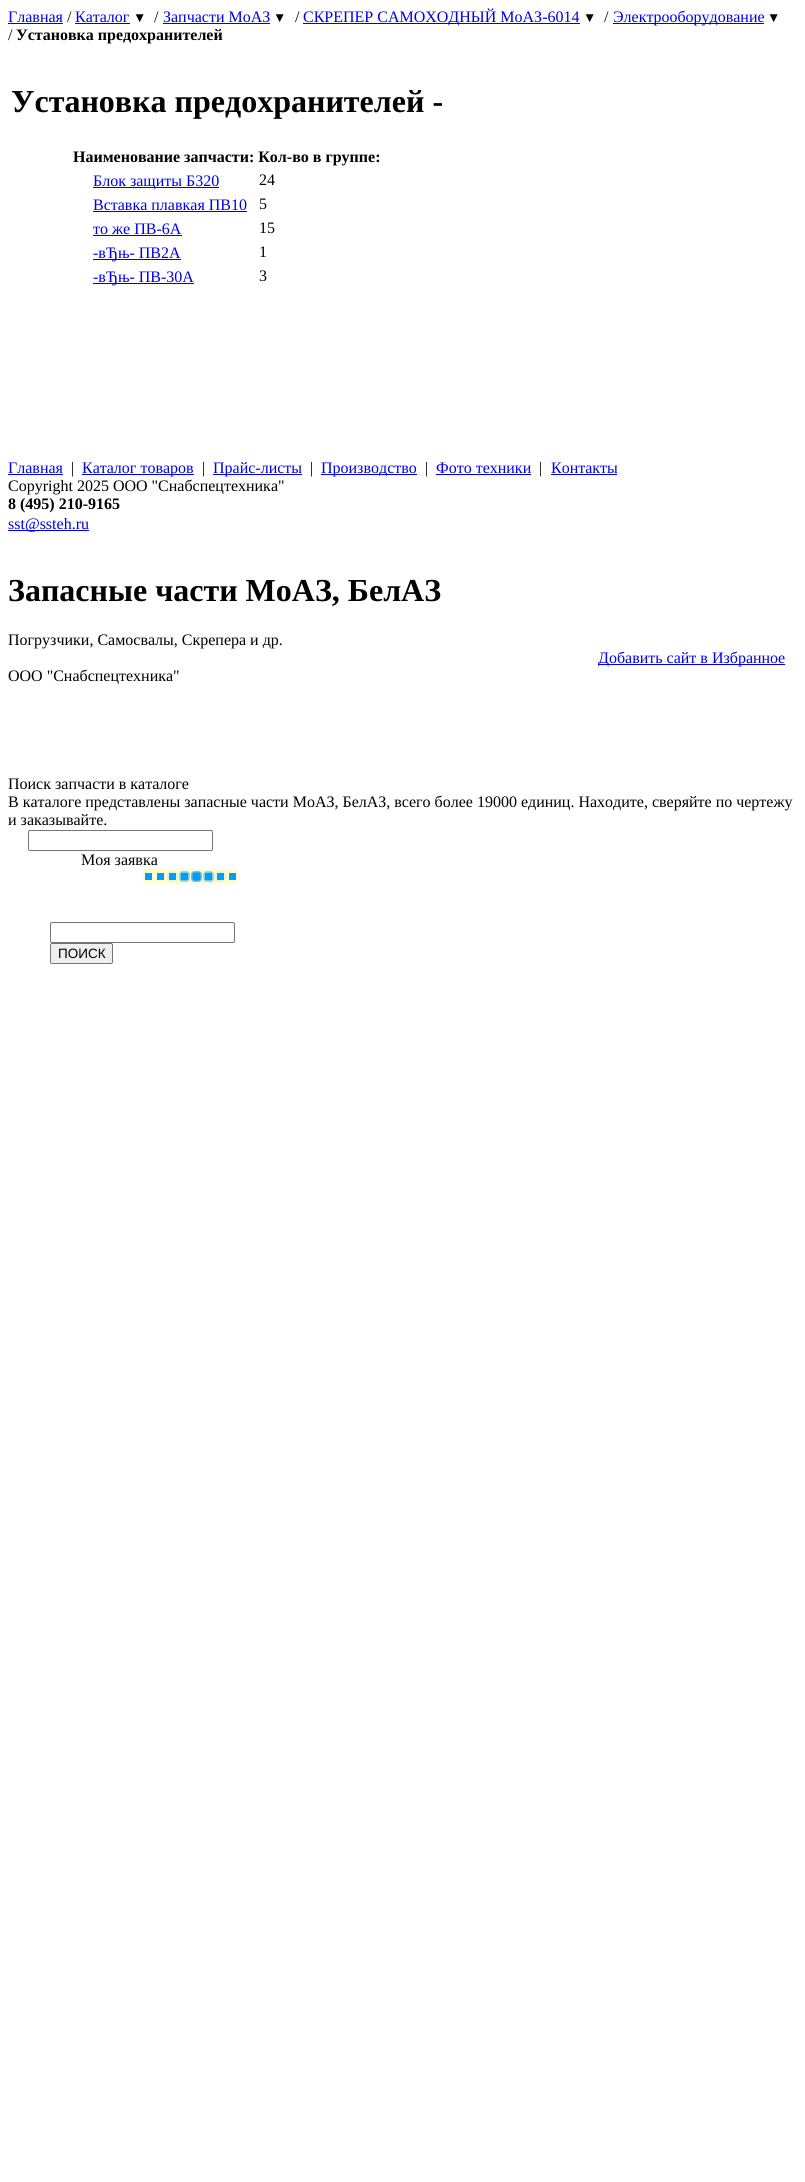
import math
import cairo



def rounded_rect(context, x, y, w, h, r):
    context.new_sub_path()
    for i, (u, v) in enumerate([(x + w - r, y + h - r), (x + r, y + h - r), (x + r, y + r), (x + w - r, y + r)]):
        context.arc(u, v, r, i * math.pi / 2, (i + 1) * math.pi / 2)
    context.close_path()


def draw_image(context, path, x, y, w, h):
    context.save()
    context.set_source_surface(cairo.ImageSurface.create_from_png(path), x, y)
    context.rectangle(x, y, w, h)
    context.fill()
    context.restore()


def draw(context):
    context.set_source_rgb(1, 1, 1)
    context.paint()
    context.set_source_rgb(0, 0, 238 / 255)
    context.rectangle(8, 23, 55, 1)
    context.fill()
    context.rectangle(75, 23, 55, 1)
    context.fill()
    context.rectangle(163, 23, 107, 1)
    context.fill()
    context.rectangle(303, 23, 277, 1)
    context.fill()
    context.rectangle(613, 23, 151, 1)
    context.fill()
    context.rectangle(93, 187, 126, 1)
    context.fill()
    context.rectangle(93, 211, 154, 1)
    context.fill()
    context.rectangle(93, 235, 89, 1)
    context.fill()
    context.rectangle(93, 259, 88, 1)
    context.fill()
    context.rectangle(93, 283, 101, 1)
    context.fill()
    context.rectangle(8, 474, 55, 1)
    context.fill()
    context.rectangle(82, 474, 112, 1)
    context.fill()
    context.rectangle(213, 474, 89, 1)
    context.fill()
    context.rectangle(321, 474, 96, 1)
    context.fill()
    context.rectangle(436, 474, 95, 1)
    context.fill()
    context.rectangle(551, 474, 66, 1)
    context.fill()
    context.rectangle(8, 530, 81, 1)
    context.fill()
    context.rectangle(598, 664, 187, 1)
    context.fill()
    rounded_rect(context, 28.5, 830.5, 184, 20, 1.5)
    context.set_source_rgb(118 / 255, 118 / 255, 118 / 255)
    context.set_line_width(1)
    context.stroke()
    draw_image(context, "images/1.png", 143, 869, 95, 15)
    rounded_rect(context, 50.5, 922.5, 184, 20, 1.5)
    context.stroke()
    context.set_source_rgb(239 / 255, 239 / 255, 239 / 255)
    rounded_rect(context, 50.5, 943.5, 62, 20, 1.5)
    context.fill_preserve()
    context.set_source_rgb(118 / 255, 118 / 255, 118 / 255)
    context.stroke()
    context.select_font_face("Liberation Serif")
    context.set_font_size(16)
    context.set_source_rgb(0, 0, 238 / 255)
    context.move_to(8, 22)
    context.show_text("Главная")
    context.set_source_rgb(0, 0, 0)
    context.move_to(67, 22)
    context.show_text("/")
    context.set_source_rgb(0, 0, 238 / 255)
    context.move_to(75, 22)
    context.show_text("Каталог")
    context.set_font_size(13.5)
    context.set_source_rgb(0, 0, 0)
    context.move_to(133, 22)
    context.show_text("▼")
    context.set_font_size(16)
    context.move_to(154, 22)
    context.show_text("/")
    context.set_source_rgb(0, 0, 238 / 255)
    context.move_to(163, 22)
    context.show_text("Запчасти МоАЗ")
    context.set_font_size(13.5)
    context.set_source_rgb(0, 0, 0)
    context.move_to(273, 22)
    context.show_text("▼")
    context.set_font_size(16)
    context.move_to(295, 22)
    context.show_text("/")
    context.set_source_rgb(0, 0, 238 / 255)
    context.move_to(303, 22)
    context.show_text("СКРЕПЕР САМОХОДНЫЙ МоАЗ-6014")
    context.set_font_size(13.5)
    context.set_source_rgb(0, 0, 0)
    context.move_to(583, 22)
    context.show_text("▼")
    context.set_font_size(16)
    context.move_to(604, 22)
    context.show_text("/")
    context.set_source_rgb(0, 0, 238 / 255)
    context.move_to(613, 22)
    context.show_text("Электрооборудование")
    context.set_font_size(13.5)
    context.set_source_rgb(0, 0, 0)
    context.move_to(767, 22)
    context.show_text("▼")
    context.set_font_size(16)
    context.move_to(8, 40)
    context.show_text("/")
    context.select_font_face("Liberation Serif", cairo.FontSlant.NORMAL, cairo.FontWeight.BOLD)
    context.move_to(16, 40)
    context.show_text("Установка предохранителей")
    context.set_font_size(32)
    context.move_to(11, 112)
    context.show_text("Установка предохранителей -")
    context.set_font_size(16)
    context.move_to(73, 162)
    context.show_text("Наименование запчасти: Кол-во в группе:")
    context.select_font_face("Liberation Serif")
    context.set_source_rgb(0, 0, 238 / 255)
    context.move_to(93, 186)
    context.show_text("Блок защиты Б320")
    context.set_source_rgb(0, 0, 0)
    context.move_to(259, 185)
    context.show_text("24")
    context.set_source_rgb(0, 0, 238 / 255)
    context.move_to(93, 210)
    context.show_text("Вставка плавкая ПВ10")
    context.set_source_rgb(0, 0, 0)
    context.move_to(259, 209)
    context.show_text("5")
    context.set_source_rgb(0, 0, 238 / 255)
    context.move_to(93, 234)
    context.show_text("то же ПВ-6А")
    context.set_source_rgb(0, 0, 0)
    context.move_to(259, 233)
    context.show_text("15")
    context.set_source_rgb(0, 0, 238 / 255)
    context.move_to(93, 258)
    context.show_text("-вЂњ- ПВ2А")
    context.set_source_rgb(0, 0, 0)
    context.move_to(259, 257)
    context.show_text("1")
    context.set_source_rgb(0, 0, 238 / 255)
    context.move_to(93, 282)
    context.show_text("-вЂњ- ПВ-30А")
    context.set_source_rgb(0, 0, 0)
    context.move_to(259, 281)
    context.show_text("3")
    context.set_source_rgb(0, 0, 238 / 255)
    context.move_to(8, 473)
    context.show_text("Главная")
    context.set_source_rgb(0, 0, 0)
    context.move_to(71, 473)
    context.show_text("|")
    context.set_source_rgb(0, 0, 238 / 255)
    context.move_to(82, 473)
    context.show_text("Каталог товаров")
    context.set_source_rgb(0, 0, 0)
    context.move_to(202, 473)
    context.show_text("|")
    context.set_source_rgb(0, 0, 238 / 255)
    context.move_to(213, 473)
    context.show_text("Прайс-листы")
    context.set_source_rgb(0, 0, 0)
    context.move_to(310, 473)
    context.show_text("|")
    context.set_source_rgb(0, 0, 238 / 255)
    context.move_to(321, 473)
    context.show_text("Производство")
    context.set_source_rgb(0, 0, 0)
    context.move_to(425, 473)
    context.show_text("|")
    context.set_source_rgb(0, 0, 238 / 255)
    context.move_to(436, 473)
    context.show_text("Фото техники")
    context.set_source_rgb(0, 0, 0)
    context.move_to(539, 473)
    context.show_text("|")
    context.set_source_rgb(0, 0, 238 / 255)
    context.move_to(551, 473)
    context.show_text("Контакты")
    context.set_source_rgb(0, 0, 0)
    context.move_to(8, 491)
    context.show_text("Copyright 2025 ООО \"Снабспецтехника\"")
    context.select_font_face("Liberation Serif", cairo.FontSlant.NORMAL, cairo.FontWeight.BOLD)
    context.move_to(8, 509)
    context.show_text("8 (495) 210-9165")
    context.select_font_face("Liberation Serif")
    context.set_source_rgb(0, 0, 238 / 255)
    context.move_to(8, 529)
    context.show_text("sst@ssteh.ru")
    context.select_font_face("Liberation Serif", cairo.FontSlant.NORMAL, cairo.FontWeight.BOLD)
    context.set_font_size(32)
    context.set_source_rgb(0, 0, 0)
    context.move_to(8, 601)
    context.show_text("Запасные части МоАЗ, БелАЗ")
    context.select_font_face("Liberation Serif")
    context.set_font_size(16)
    context.move_to(8, 645)
    context.show_text("Погрузчики, Самосвалы, Скрепера и др.")
    context.set_source_rgb(0, 0, 238 / 255)
    context.move_to(598, 663)
    context.show_text("Добавить сайт в Избранное")
    context.set_source_rgb(0, 0, 0)
    context.move_to(8, 681)
    context.show_text("ООО \"Снабспецтехника\"")
    context.move_to(8, 789)
    context.show_text("Поиск запчасти в каталоге")
    context.move_to(8, 807)
    context.show_text("В каталоге представлены запасные части МоАЗ, БелАЗ, всего более 19000 единиц. Находите, сверяйте по чертежу")
    context.move_to(8, 825)
    context.show_text("и заказывайте.")
    context.move_to(81, 865)
    context.show_text("Моя заявка")
    context.select_font_face("Liberation Sans")
    context.set_font_size(13.5)
    context.move_to(58, 958)
    context.show_text("ПОИСК")


surface = cairo.ImageSurface(cairo.Format.RGB24, 805, 2182)
context = cairo.Context(surface)
options = cairo.FontOptions()
options.set_hint_metrics(cairo.HintMetrics.OFF)
options.set_hint_style(cairo.HintStyle.NONE)
context.set_font_options(options)
context.set_miter_limit(4)
draw(context)
surface.write_to_png("out.png")
